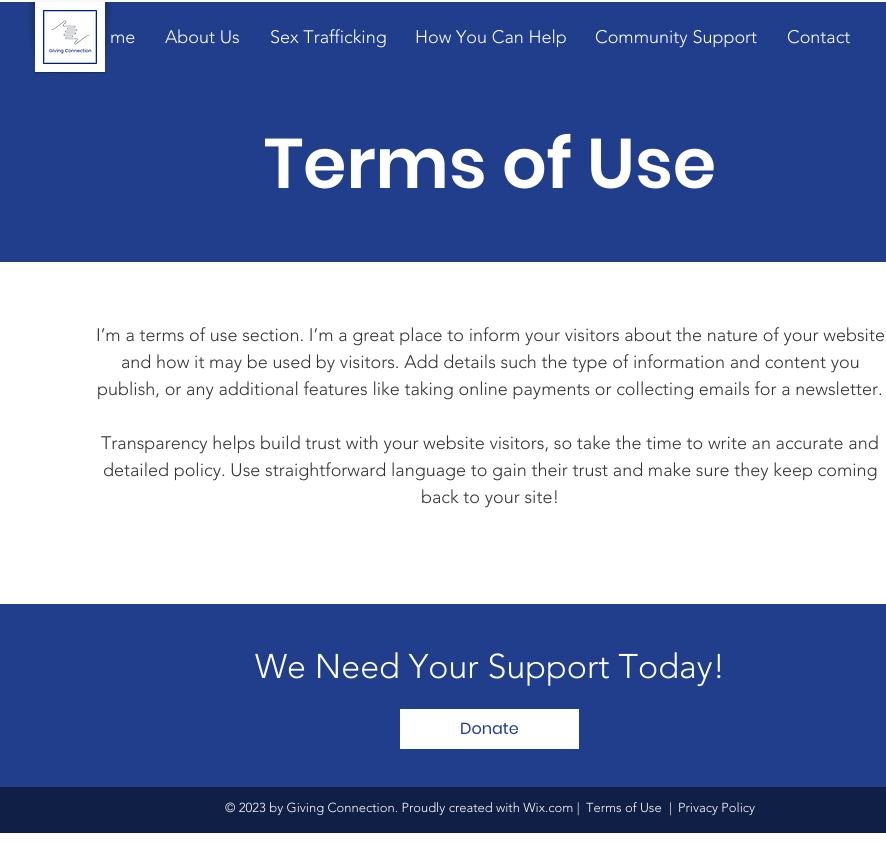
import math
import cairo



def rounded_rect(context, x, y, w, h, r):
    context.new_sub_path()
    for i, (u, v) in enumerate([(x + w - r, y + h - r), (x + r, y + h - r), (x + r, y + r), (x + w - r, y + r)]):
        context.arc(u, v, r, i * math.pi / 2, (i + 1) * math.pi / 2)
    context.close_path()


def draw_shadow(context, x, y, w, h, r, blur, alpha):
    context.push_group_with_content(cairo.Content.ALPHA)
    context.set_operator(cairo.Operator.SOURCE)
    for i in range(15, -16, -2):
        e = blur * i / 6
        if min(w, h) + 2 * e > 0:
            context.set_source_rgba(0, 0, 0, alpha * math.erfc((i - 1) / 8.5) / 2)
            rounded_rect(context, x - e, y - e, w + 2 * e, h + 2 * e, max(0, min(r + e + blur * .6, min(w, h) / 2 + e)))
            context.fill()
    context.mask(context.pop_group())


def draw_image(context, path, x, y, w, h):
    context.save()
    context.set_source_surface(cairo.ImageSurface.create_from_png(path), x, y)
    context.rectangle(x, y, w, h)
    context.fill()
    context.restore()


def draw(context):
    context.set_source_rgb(1, 1, 1)
    context.paint()
    context.set_source_rgb(33 / 255, 62 / 255, 140 / 255)
    context.rectangle(0, 2, 886, 260)
    context.fill()
    context.set_source_rgb(0, 0, 0)
    draw_shadow(context, 35, 2, 70, 70, 0, 2.5, 0.1)
    context.set_source_rgb(1, 1, 1)
    context.rectangle(35, 2, 70, 70)
    context.fill()
    draw_image(context, "images/1.png", 43, 10, 54, 54)
    draw_image(context, "images/2.png", 35, 72, 70, 2)
    draw_image(context, "images/3.png", 28, 2, 7, 55)
    draw_image(context, "images/4.png", 105, 2, 7, 55)
    context.set_source_rgb(33 / 255, 62 / 255, 140 / 255)
    context.rectangle(0, 604, 886, 183)
    context.fill()
    context.set_source_rgb(1, 1, 1)
    context.rectangle(400, 709, 179, 40)
    context.fill()
    context.set_source_rgb(16 / 255, 31 / 255, 70 / 255)
    context.rectangle(0, 787, 886, 46)
    context.fill()
    context.select_font_face("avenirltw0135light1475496 Light")
    context.set_font_size(18)
    context.set_source_rgb(1, 1, 1)
    context.move_to(110, 43)
    context.show_text("me")
    context.move_to(165, 43)
    context.show_text("About Us")
    context.move_to(270, 43)
    context.show_text("Sex Trafficking")
    context.move_to(415, 43)
    context.show_text("How You Can Help")
    context.move_to(595, 43)
    context.show_text("Community Support")
    context.move_to(787, 43)
    context.show_text("Contact")
    context.select_font_face("Poppins SemiBold")
    context.set_font_size(70)
    context.move_to(264, 188)
    context.show_text("Terms of Use")
    context.select_font_face("avenirltw0135light1475496 Light")
    context.set_font_size(18)
    context.set_source_rgb(51 / 255, 51 / 255, 51 / 255)
    context.move_to(96, 341)
    context.show_text("I’m a terms of use section. I’m a great place to inform your visitors about the nature of your website")
    context.move_to(121, 368)
    context.show_text("and how it may be used by visitors. Add details such the type of information and content you")
    context.move_to(97, 395)
    context.show_text("publish, or any additional features like taking online payments or collecting emails for a newsletter.")
    context.move_to(101, 449)
    context.show_text("Transparency helps build trust with your website visitors, so take the time to write an accurate and")
    context.move_to(103, 476)
    context.show_text("detailed policy. Use straightforward language to gain their trust and make sure they keep coming")
    context.move_to(421, 503)
    context.show_text("back to your site!")
    context.set_font_size(34)
    context.set_source_rgb(1, 1, 1)
    context.move_to(255, 678)
    context.show_text("We Need Your Support Today!")
    context.select_font_face("Poppins")
    context.set_font_size(16)
    context.set_source_rgb(33 / 255, 62 / 255, 140 / 255)
    context.move_to(460, 734)
    context.show_text("Donate")
    context.select_font_face("avenirltw0135light1475496 Light")
    context.set_font_size(13)
    context.set_source_rgb(1, 1, 1)
    context.move_to(225, 812)
    context.show_text("© 2023 by Giving Connection. Proudly created with Wix.com |")
    context.move_to(586, 812)
    context.show_text("Terms of Use")
    context.move_to(669, 812)
    context.show_text("|")
    context.move_to(678, 812)
    context.show_text("Privacy Policy")


surface = cairo.ImageSurface(cairo.Format.RGB24, 886, 842)
context = cairo.Context(surface)
options = cairo.FontOptions()
options.set_hint_metrics(cairo.HintMetrics.OFF)
options.set_hint_style(cairo.HintStyle.NONE)
context.set_font_options(options)
context.set_miter_limit(4)
draw(context)
surface.write_to_png("out.png")
